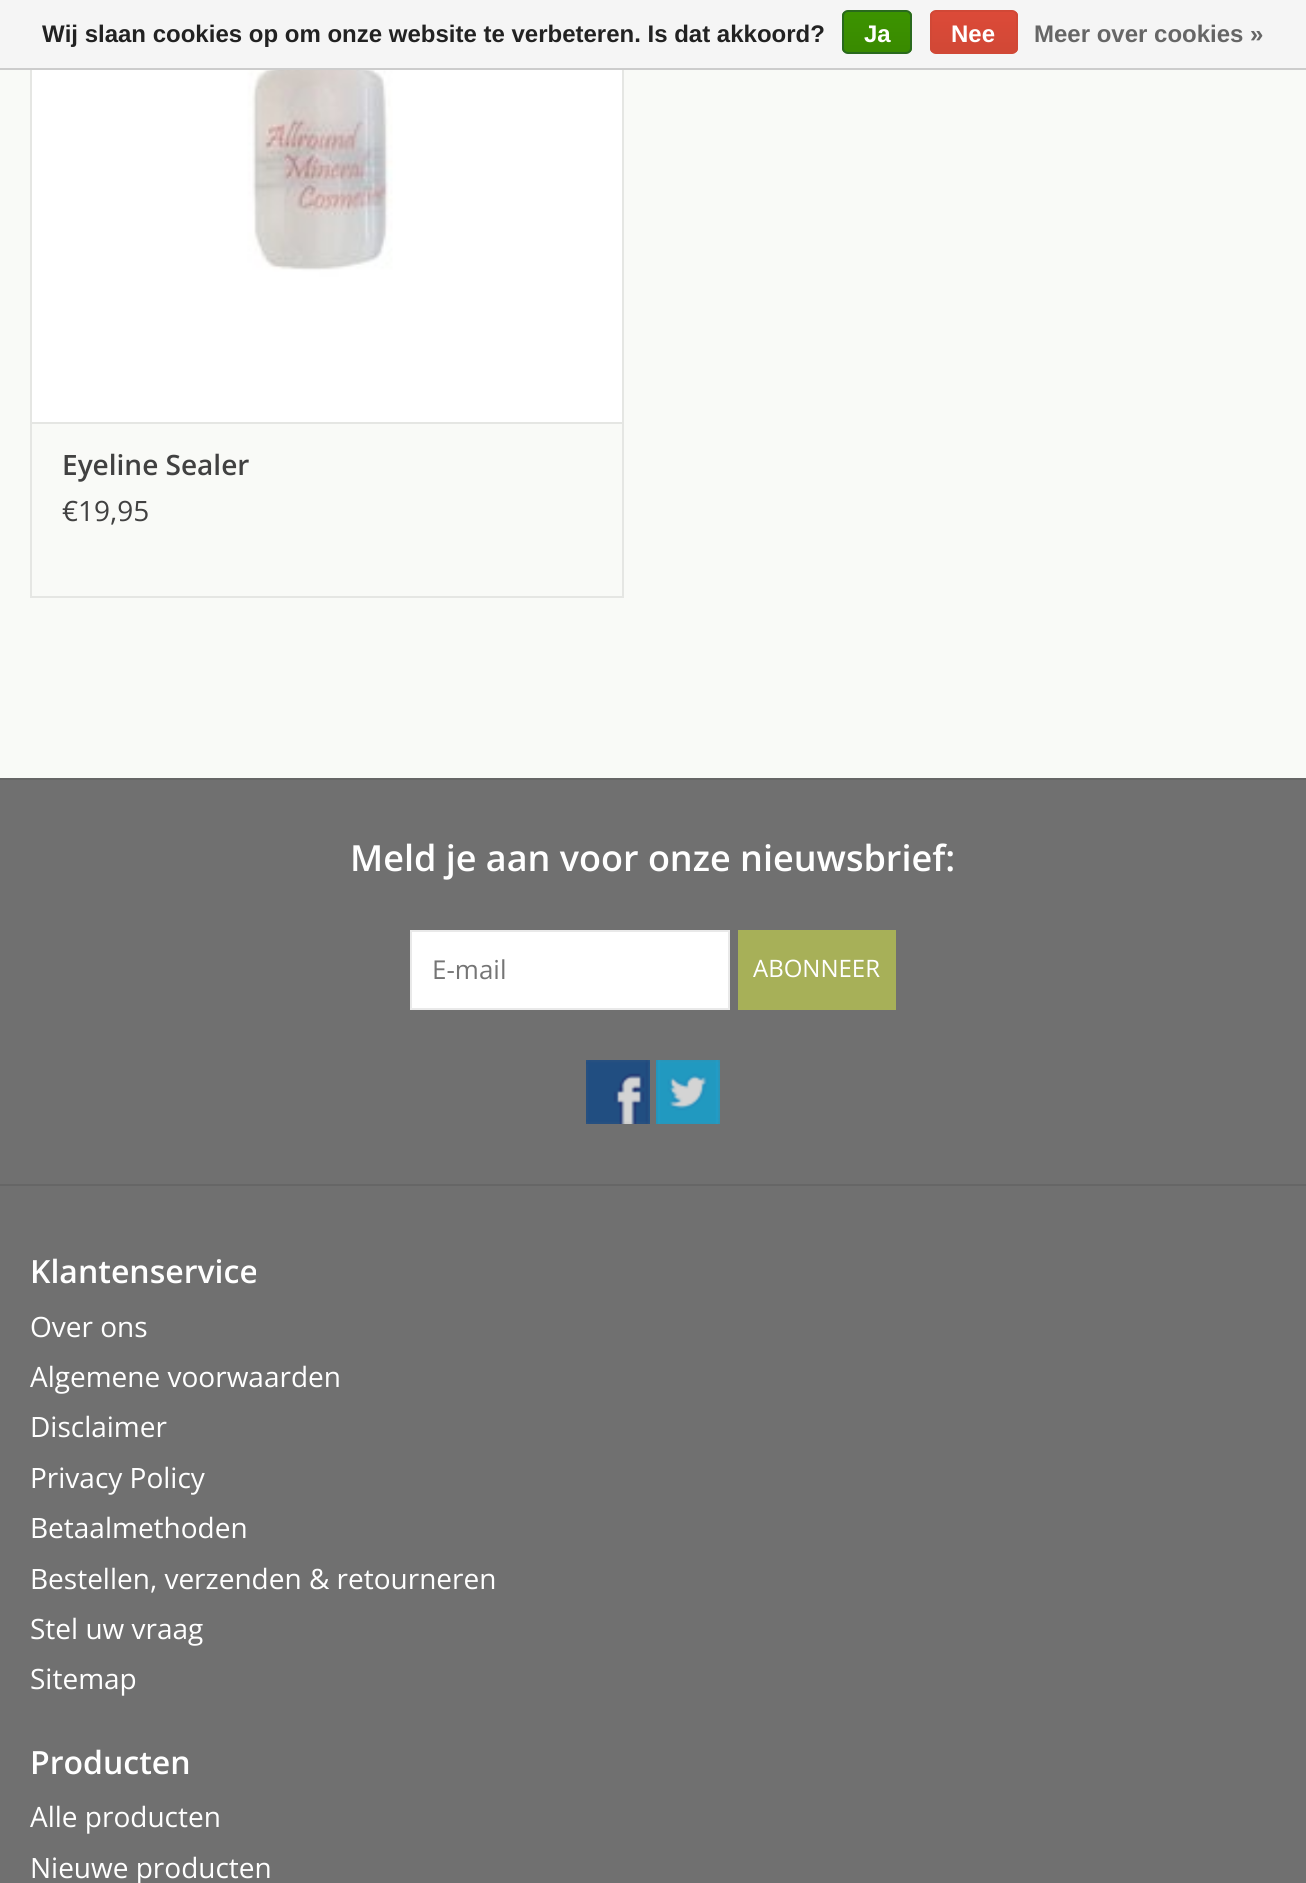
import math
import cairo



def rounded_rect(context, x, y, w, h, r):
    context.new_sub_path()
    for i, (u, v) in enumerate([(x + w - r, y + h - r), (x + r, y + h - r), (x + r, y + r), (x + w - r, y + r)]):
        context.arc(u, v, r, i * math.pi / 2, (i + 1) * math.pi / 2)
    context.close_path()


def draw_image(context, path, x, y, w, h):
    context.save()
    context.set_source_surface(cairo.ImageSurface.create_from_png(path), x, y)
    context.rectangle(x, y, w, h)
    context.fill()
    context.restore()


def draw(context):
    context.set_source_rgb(249 / 255, 250 / 255, 247 / 255)
    context.paint()
    context.set_source_rgb(245 / 255, 245 / 255, 245 / 255)
    context.rectangle(0, 0, 1306, 68)
    context.fill()
    context.set_source_rgb(204 / 255, 204 / 255, 204 / 255)
    context.rectangle(0, 68, 1306, 2)
    context.fill()
    context.save()
    rounded_rect(context, 842, 10, 70, 44, 6)
    context.clip()
    gradient = cairo.LinearGradient(877, 12, 877, 52)
    gradient.add_color_stop_rgba(0, 60 / 255, 147 / 255, 0, 1)
    gradient.add_color_stop_rgba(1, 57 / 255, 138 / 255, 0, 1)
    context.set_source(gradient)
    context.rectangle(842, 12, 70, 40)
    context.fill()
    context.restore()
    rounded_rect(context, 843, 11, 68, 42, 5)
    context.set_source_rgb(41 / 255, 105 / 255, 29 / 255)
    context.stroke()
    context.save()
    rounded_rect(context, 930, 10, 88, 44, 6)
    context.clip()
    gradient = cairo.LinearGradient(974, 12, 974, 52)
    gradient.add_color_stop_rgba(0, 220 / 255, 74 / 255, 56 / 255, 1)
    gradient.add_color_stop_rgba(1, 209 / 255, 72 / 255, 54 / 255, 1)
    context.set_source(gradient)
    context.rectangle(930, 12, 88, 40)
    context.fill()
    context.restore()
    rounded_rect(context, 931, 11, 86, 42, 5)
    context.set_source_rgb(209 / 255, 72 / 255, 54 / 255)
    context.stroke()
    context.set_source_rgb(229 / 255, 230 / 255, 227 / 255)
    context.rectangle(622, 70, 2, 352)
    context.fill()
    context.rectangle(30, 70, 2, 352)
    context.fill()
    draw_image(context, "images/1.png", 32, 70, 590, 352)
    context.rectangle(31, 423, 592, 174)
    context.stroke()
    context.set_source_rgb(112 / 255, 112 / 255, 112 / 255)
    context.rectangle(0, 780, 1306, 1103)
    context.fill()
    context.set_source_rgb(102 / 255, 102 / 255, 102 / 255)
    context.rectangle(0, 778, 1306, 2)
    context.fill()
    context.set_source_rgb(1, 1, 1)
    context.rectangle(411, 931, 318, 78)
    context.fill_preserve()
    context.set_source_rgb(233 / 255, 233 / 255, 233 / 255)
    context.stroke()
    context.set_source_rgb(167 / 255, 176 / 255, 88 / 255)
    context.rectangle(738, 930, 158, 80)
    context.fill()
    draw_image(context, "images/2.png", 586, 1060, 64, 64)
    draw_image(context, "images/3.png", 656, 1060, 64, 64)
    context.set_source_rgb(102 / 255, 102 / 255, 102 / 255)
    context.rectangle(0, 1184, 1306, 2)
    context.fill()
    context.select_font_face("Liberation Sans", cairo.FontSlant.NORMAL, cairo.FontWeight.BOLD)
    context.set_font_size(24)
    context.set_source_rgb(34 / 255, 34 / 255, 34 / 255)
    context.move_to(42, 42)
    context.show_text("Wij slaan cookies op om onze website te verbeteren. Is dat akkoord?")
    context.set_source_rgb(1, 1, 1)
    context.move_to(864, 42)
    context.show_text("Ja")
    context.move_to(951, 42)
    context.show_text("Nee")
    context.set_source_rgb(102 / 255, 102 / 255, 102 / 255)
    context.move_to(1034, 42)
    context.show_text("Meer over cookies »")
    context.select_font_face("Open Sans SemiBold")
    context.set_font_size(28)
    context.set_source_rgb(65 / 255, 65 / 255, 65 / 255)
    context.move_to(62, 475)
    context.show_text("Eyeline Sealer")
    context.select_font_face("Open Sans")
    context.move_to(62, 521)
    context.show_text("€19,95")
    context.select_font_face("Open Sans SemiBold")
    context.set_font_size(36)
    context.set_source_rgb(1, 1, 1)
    context.move_to(350, 871)
    context.show_text("Meld je aan voor onze nieuwsbrief:")
    context.select_font_face("Open Sans")
    context.set_font_size(26)
    context.set_source_rgb(117 / 255, 117 / 255, 117 / 255)
    context.move_to(432, 979)
    context.show_text("E-mail")
    context.set_font_size(24)
    context.set_source_rgb(1, 1, 1)
    context.move_to(753, 977)
    context.show_text("ABONNEER")
    context.select_font_face("Open Sans SemiBold")
    context.set_font_size(32)
    context.move_to(30, 1283)
    context.show_text("Klantenservice")
    context.select_font_face("Open Sans")
    context.set_font_size(28)
    context.move_to(30, 1337)
    context.show_text("Over ons")
    context.move_to(30, 1387)
    context.show_text("Algemene voorwaarden")
    context.move_to(30, 1437)
    context.show_text("Disclaimer")
    context.move_to(30, 1488)
    context.show_text("Privacy Policy")
    context.move_to(30, 1538)
    context.show_text("Betaalmethoden")
    context.move_to(30, 1589)
    context.show_text("Bestellen, verzenden & retourneren")
    context.move_to(30, 1639)
    context.show_text("Stel uw vraag")
    context.move_to(30, 1689)
    context.show_text("Sitemap")
    context.select_font_face("Open Sans SemiBold")
    context.set_font_size(32)
    context.move_to(30, 1774)
    context.show_text("Producten")
    context.select_font_face("Open Sans")
    context.set_font_size(28)
    context.move_to(30, 1827)
    context.show_text("Alle producten")
    context.move_to(30, 1878)
    context.show_text("Nieuwe producten")


surface = cairo.ImageSurface(cairo.Format.RGB24, 1306, 1883)
context = cairo.Context(surface)
options = cairo.FontOptions()
options.set_hint_metrics(cairo.HintMetrics.OFF)
options.set_hint_style(cairo.HintStyle.NONE)
context.set_font_options(options)
context.set_miter_limit(4)
draw(context)
surface.write_to_png("out.png")
